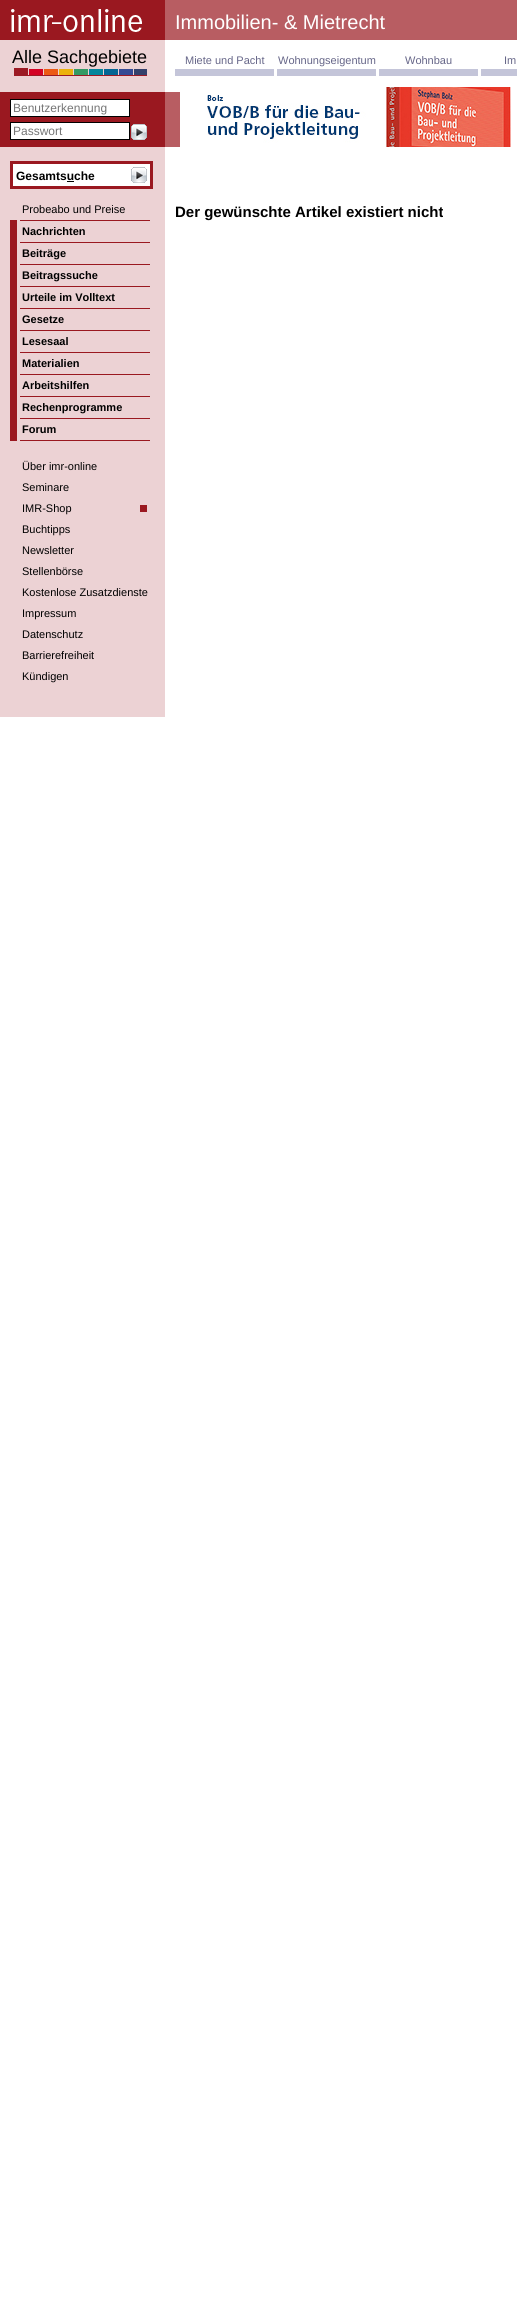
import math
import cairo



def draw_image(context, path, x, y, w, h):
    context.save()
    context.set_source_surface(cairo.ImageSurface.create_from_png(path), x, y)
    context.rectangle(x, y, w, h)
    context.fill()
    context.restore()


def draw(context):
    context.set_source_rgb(1, 1, 1)
    context.paint()
    context.set_source_rgb(236 / 255, 210 / 255, 212 / 255)
    context.rectangle(0, 40, 165, 677)
    context.fill()
    context.set_source_rgb(184 / 255, 93 / 255, 98 / 255)
    context.rectangle(165, 0, 352, 40)
    context.fill()
    context.set_source_rgb(154 / 255, 24 / 255, 32 / 255)
    context.rectangle(0, 0, 165, 40)
    context.fill()
    draw_image(context, "images/1.png", 11, 9, 131, 23)
    draw_image(context, "images/2.png", 14, 68, 133, 8)
    context.set_source_rgb(196 / 255, 197 / 255, 217 / 255)
    context.rectangle(175, 69, 99, 7)
    context.fill()
    context.rectangle(277, 69, 99, 7)
    context.fill()
    context.rectangle(379, 69, 99, 7)
    context.fill()
    context.rectangle(481, 69, 36, 7)
    context.fill()
    context.set_source_rgb(184 / 255, 93 / 255, 98 / 255)
    context.rectangle(165, 92, 15, 55)
    context.fill()
    context.set_source_rgb(154 / 255, 24 / 255, 32 / 255)
    context.rectangle(0, 92, 165, 55)
    context.fill()
    context.set_source_rgb(1, 1, 1)
    context.rectangle(10.5, 99.5, 119, 17)
    context.fill_preserve()
    context.set_source_rgb(0, 0, 0)
    context.set_line_width(1)
    context.stroke()
    context.set_source_rgb(1, 1, 1)
    context.rectangle(10.5, 122.5, 119, 17)
    context.fill_preserve()
    context.set_source_rgb(0, 0, 0)
    context.stroke()
    draw_image(context, "images/3.png", 131, 124, 16, 16)
    context.set_source_rgb(1, 1, 1)
    context.rectangle(11.5, 162.5, 140, 25)
    context.fill_preserve()
    context.set_source_rgb(154 / 255, 24 / 255, 32 / 255)
    context.set_line_width(3)
    context.stroke()
    context.set_source_rgb(0, 0, 0)
    context.rectangle(67, 181, 7, 1)
    context.fill()
    draw_image(context, "images/4.png", 131, 167, 16, 16)
    context.set_source_rgb(154 / 255, 24 / 255, 32 / 255)
    context.rectangle(10, 220, 7, 221)
    context.fill()
    context.rectangle(20, 220, 130, 1)
    context.fill()
    context.rectangle(20, 242, 130, 1)
    context.fill()
    context.rectangle(20, 264, 130, 1)
    context.fill()
    context.rectangle(20, 286, 130, 1)
    context.fill()
    context.rectangle(20, 308, 130, 1)
    context.fill()
    context.rectangle(20, 330, 130, 1)
    context.fill()
    context.rectangle(20, 352, 130, 1)
    context.fill()
    context.rectangle(20, 374, 130, 1)
    context.fill()
    context.rectangle(20, 396, 130, 1)
    context.fill()
    context.rectangle(20, 418, 130, 1)
    context.fill()
    context.rectangle(20, 440, 130, 1)
    context.fill()
    context.rectangle(140, 505, 7, 7)
    context.fill()
    draw_image(context, "images/5.png", 207, 87, 304, 60)
    context.select_font_face("Liberation Sans")
    context.set_font_size(20)
    context.set_source_rgb(1, 1, 1)
    context.move_to(175, 29)
    context.show_text("Immobilien- & Mietrecht")
    context.set_font_size(18)
    context.set_source_rgb(0, 0, 0)
    context.move_to(12, 63)
    context.show_text("Alle Sachgebiete")
    context.set_font_size(11)
    context.set_source_rgb(102 / 255, 102 / 255, 136 / 255)
    context.move_to(185, 64)
    context.show_text("Miete und Pacht")
    context.move_to(278, 64)
    context.show_text("Wohnungseigentum")
    context.move_to(405, 64)
    context.show_text("Wohnbau")
    context.move_to(504, 64)
    context.show_text("Im")
    context.set_font_size(12)
    context.set_source_rgb(117 / 255, 117 / 255, 117 / 255)
    context.move_to(13, 112)
    context.show_text("Benutzerkennung")
    context.move_to(13, 135)
    context.show_text("Passwort")
    context.select_font_face("Liberation Sans", cairo.FontSlant.NORMAL, cairo.FontWeight.BOLD)
    context.set_source_rgb(0, 0, 0)
    context.move_to(16, 180)
    context.show_text("Gesamtsuche")
    context.select_font_face("Liberation Sans")
    context.set_font_size(11)
    context.move_to(22, 213)
    context.show_text("Probeabo und Preise")
    context.select_font_face("Liberation Sans", cairo.FontSlant.NORMAL, cairo.FontWeight.BOLD)
    context.move_to(22, 235)
    context.show_text("Nachrichten")
    context.move_to(22, 257)
    context.show_text("Beiträge")
    context.move_to(22, 279)
    context.show_text("Beitragssuche")
    context.move_to(22, 301)
    context.show_text("Urteile im Volltext")
    context.move_to(22, 323)
    context.show_text("Gesetze")
    context.move_to(22, 345)
    context.show_text("Lesesaal")
    context.move_to(22, 367)
    context.show_text("Materialien")
    context.move_to(22, 389)
    context.show_text("Arbeitshilfen")
    context.move_to(22, 411)
    context.show_text("Rechenprogramme")
    context.move_to(22, 433)
    context.show_text("Forum")
    context.select_font_face("Liberation Sans")
    context.move_to(22, 470)
    context.show_text("Über imr-online")
    context.move_to(22, 491)
    context.show_text("Seminare")
    context.move_to(22, 512)
    context.show_text("IMR-Shop")
    context.move_to(22, 533)
    context.show_text("Buchtipps")
    context.move_to(22, 554)
    context.show_text("Newsletter")
    context.move_to(22, 575)
    context.show_text("Stellenbörse")
    context.move_to(22, 596)
    context.show_text("Kostenlose Zusatzdienste")
    context.move_to(22, 617)
    context.show_text("Impressum")
    context.move_to(22, 638)
    context.show_text("Datenschutz")
    context.move_to(22, 659)
    context.show_text("Barrierefreiheit")
    context.move_to(22, 680)
    context.show_text("Kündigen")
    context.select_font_face("Liberation Sans", cairo.FontSlant.NORMAL, cairo.FontWeight.BOLD)
    context.set_font_size(15)
    context.move_to(175, 217)
    context.show_text("Der gewünschte Artikel existiert nicht")


surface = cairo.ImageSurface(cairo.Format.RGB24, 517, 2319)
context = cairo.Context(surface)
options = cairo.FontOptions()
options.set_hint_metrics(cairo.HintMetrics.OFF)
options.set_hint_style(cairo.HintStyle.NONE)
context.set_font_options(options)
context.set_miter_limit(4)
draw(context)
surface.write_to_png("out.png")
